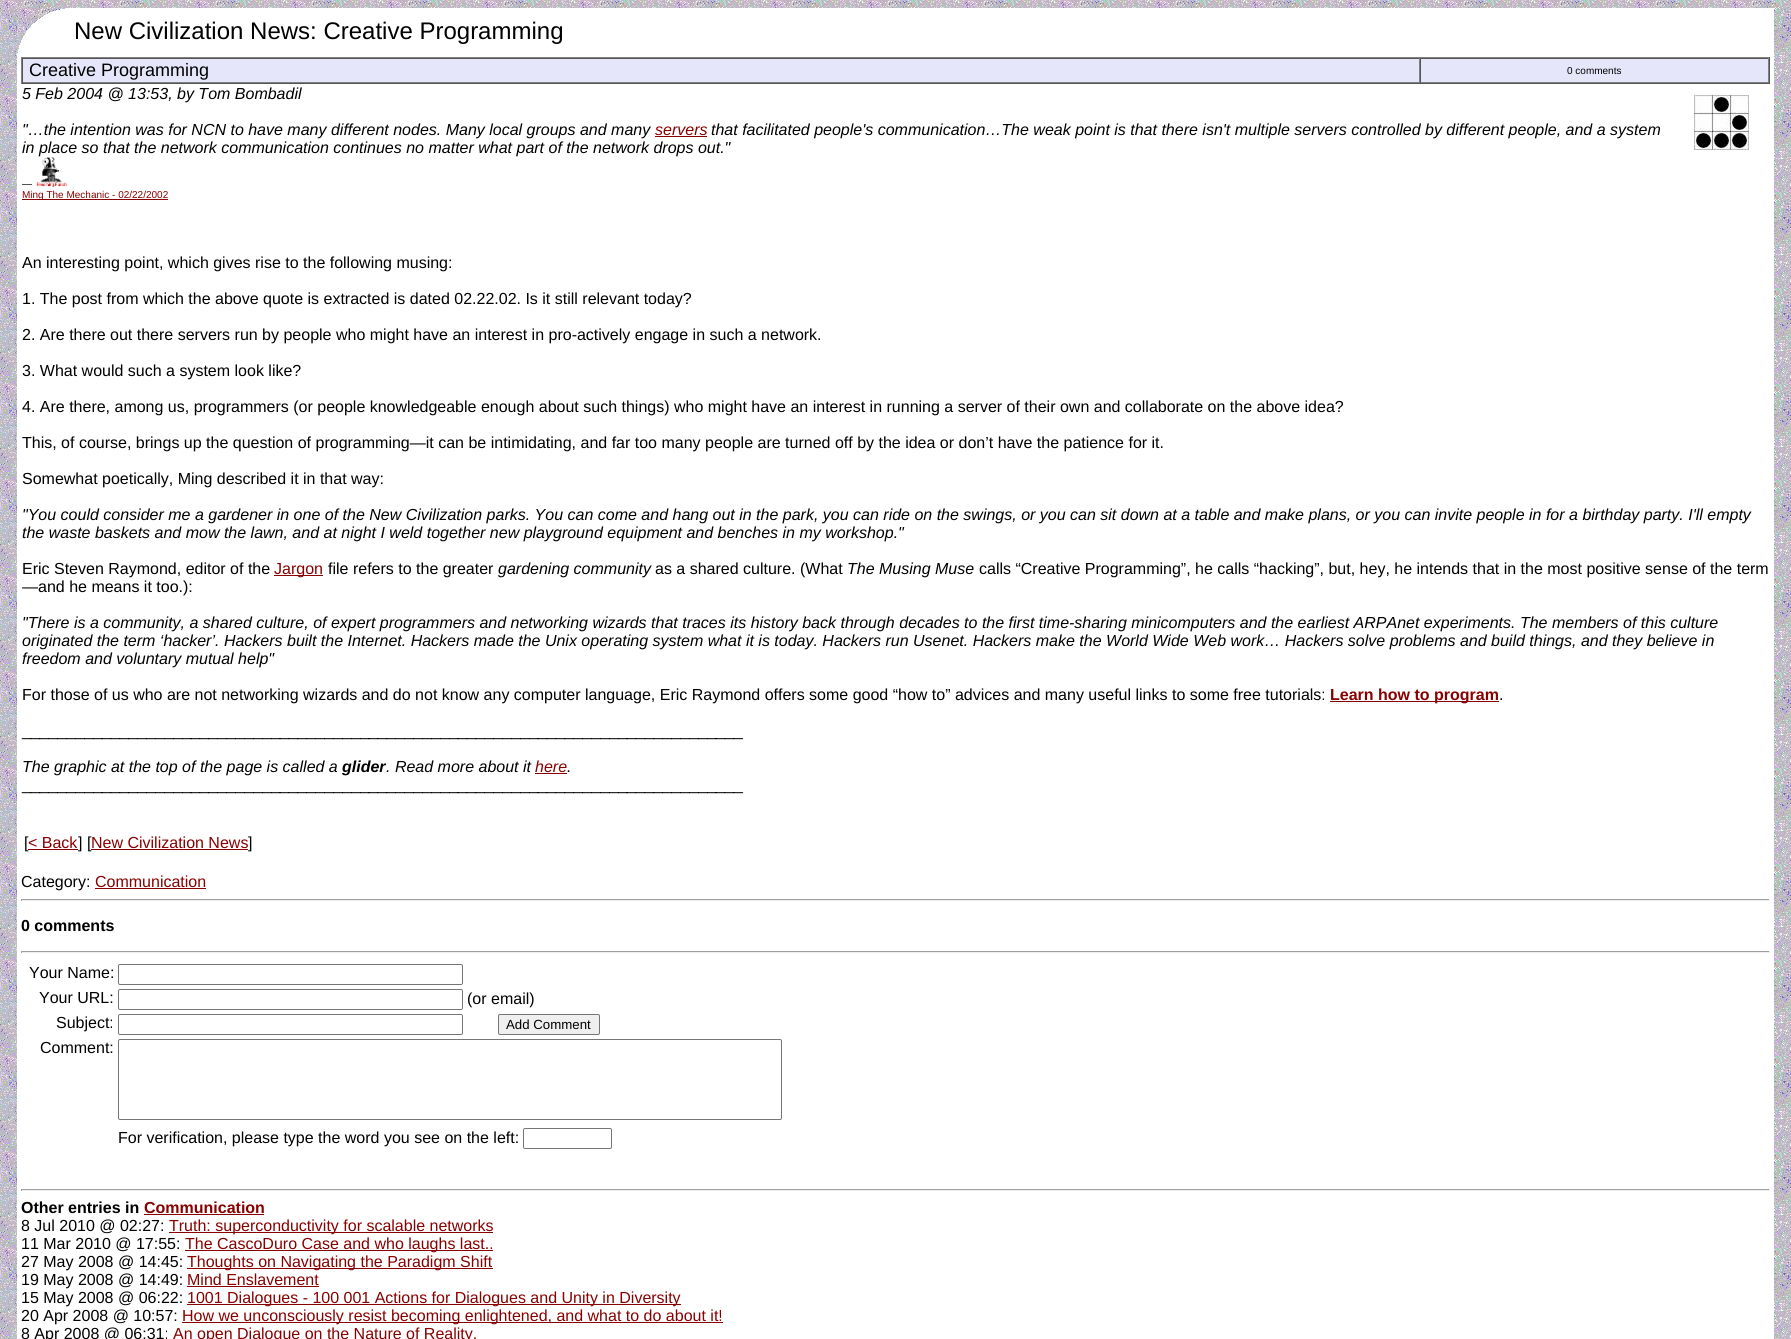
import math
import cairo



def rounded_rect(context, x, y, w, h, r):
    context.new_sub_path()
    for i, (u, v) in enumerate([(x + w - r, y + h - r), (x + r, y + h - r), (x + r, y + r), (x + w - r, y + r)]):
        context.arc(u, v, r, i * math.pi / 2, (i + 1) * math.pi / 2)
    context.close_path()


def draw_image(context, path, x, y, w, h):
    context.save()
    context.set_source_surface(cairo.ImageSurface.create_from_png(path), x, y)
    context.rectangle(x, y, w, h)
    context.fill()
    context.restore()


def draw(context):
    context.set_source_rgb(1, 1, 1)
    context.paint()
    draw_image(context, "images/1.png", 0, 0, 1791, 1339)
    context.set_source_rgb(1, 1, 1)
    context.rectangle(65, 8, 1709, 45)
    context.fill()
    draw_image(context, "images/2.png", 17, 8, 48, 45)
    context.rectangle(17, 53, 1757, 1286)
    context.fill()
    context.set_source_rgb(128 / 255, 128 / 255, 128 / 255)
    context.rectangle(21, 57, 1749, 1)
    context.fill()
    context.set_source_rgb(85 / 255, 85 / 255, 85 / 255)
    context.rectangle(1769, 57, 1, 27)
    context.fill()
    context.rectangle(21, 83, 1749, 1)
    context.fill()
    context.set_source_rgb(128 / 255, 128 / 255, 128 / 255)
    context.rectangle(21, 57, 1, 27)
    context.fill()
    context.set_source_rgb(230 / 255, 230 / 255, 250 / 255)
    context.rectangle(23, 59, 1745, 23)
    context.fill()
    context.set_source_rgb(85 / 255, 85 / 255, 85 / 255)
    context.rectangle(22, 58, 1747, 1)
    context.fill()
    context.set_source_rgb(128 / 255, 128 / 255, 128 / 255)
    context.rectangle(1419, 58, 1, 25)
    context.fill()
    context.rectangle(22, 82, 1398, 1)
    context.fill()
    context.set_source_rgb(85 / 255, 85 / 255, 85 / 255)
    context.rectangle(22, 58, 1, 25)
    context.fill()
    context.set_source_rgb(128 / 255, 128 / 255, 128 / 255)
    context.rectangle(1768, 58, 1, 25)
    context.fill()
    context.rectangle(1420, 82, 349, 1)
    context.fill()
    context.set_source_rgb(85 / 255, 85 / 255, 85 / 255)
    context.rectangle(1420, 58, 1, 25)
    context.fill()
    draw_image(context, "images/3.png", 1694, 95, 55, 55)
    context.set_source_rgb(136 / 255, 0, 0)
    context.rectangle(655, 136, 52, 1)
    context.fill()
    draw_image(context, "images/4.png", 36, 157, 32, 30)
    context.rectangle(22, 199, 146, 1)
    context.fill()
    context.rectangle(274, 575, 49, 1)
    context.fill()
    context.rectangle(1330, 701, 169, 1)
    context.fill()
    context.rectangle(535, 773, 32, 1)
    context.fill()
    context.rectangle(91, 849, 157, 1)
    context.fill()
    context.rectangle(95, 888, 111, 1)
    context.fill()
    context.set_source_rgb(159 / 255, 159 / 255, 159 / 255)
    context.rectangle(21, 899, 1749, 1)
    context.fill()
    context.set_source_rgb(238 / 255, 238 / 255, 238 / 255)
    context.rectangle(1769, 899, 1, 2)
    context.fill()
    context.rectangle(21, 900, 1749, 1)
    context.fill()
    context.set_source_rgb(159 / 255, 159 / 255, 159 / 255)
    context.rectangle(21, 899, 1, 2)
    context.fill()
    context.rectangle(21, 951, 1749, 1)
    context.fill()
    context.set_source_rgb(238 / 255, 238 / 255, 238 / 255)
    context.rectangle(1769, 951, 1, 2)
    context.fill()
    context.rectangle(21, 952, 1749, 1)
    context.fill()
    context.set_source_rgb(159 / 255, 159 / 255, 159 / 255)
    context.rectangle(21, 951, 1, 2)
    context.fill()
    rounded_rect(context, 118.5, 964.5, 344, 20, 1.5)
    context.set_source_rgb(118 / 255, 118 / 255, 118 / 255)
    context.set_line_width(1)
    context.stroke()
    rounded_rect(context, 118.5, 989.5, 344, 20, 1.5)
    context.stroke()
    rounded_rect(context, 118.5, 1014.5, 344, 20, 1.5)
    context.stroke()
    context.set_source_rgb(239 / 255, 239 / 255, 239 / 255)
    rounded_rect(context, 498.5, 1014.5, 101, 20, 1.5)
    context.fill_preserve()
    context.set_source_rgb(118 / 255, 118 / 255, 118 / 255)
    context.stroke()
    rounded_rect(context, 118.5, 1039.5, 663, 80, 1.5)
    context.stroke()
    rounded_rect(context, 523.5, 1128.5, 88, 20, 1.5)
    context.stroke()
    context.set_source_rgb(159 / 255, 159 / 255, 159 / 255)
    context.rectangle(21, 1189, 1749, 1)
    context.fill()
    context.set_source_rgb(238 / 255, 238 / 255, 238 / 255)
    context.rectangle(1769, 1189, 1, 2)
    context.fill()
    context.rectangle(21, 1190, 1749, 1)
    context.fill()
    context.set_source_rgb(159 / 255, 159 / 255, 159 / 255)
    context.rectangle(21, 1189, 1, 2)
    context.fill()
    context.set_source_rgb(136 / 255, 0, 0)
    context.rectangle(144, 1214, 120, 1)
    context.fill()
    context.rectangle(169, 1232, 324, 1)
    context.fill()
    context.rectangle(185, 1250, 308, 1)
    context.fill()
    context.rectangle(187, 1268, 306, 1)
    context.fill()
    context.rectangle(187, 1286, 132, 1)
    context.fill()
    context.rectangle(187, 1304, 494, 1)
    context.fill()
    context.rectangle(182, 1322, 541, 1)
    context.fill()
    context.select_font_face("Liberation Sans")
    context.set_font_size(24)
    context.set_source_rgb(0, 0, 0)
    context.move_to(74, 39)
    context.show_text("New Civilization News: Creative Programming")
    context.set_font_size(18)
    context.move_to(29, 76)
    context.show_text("Creative Programming")
    context.set_font_size(10)
    context.move_to(1567, 74)
    context.show_text("0 comments")
    context.select_font_face("Liberation Sans", cairo.FontSlant.ITALIC)
    context.set_font_size(16)
    context.move_to(22, 99)
    context.show_text("5 Feb 2004 @ 13:53, by Tom Bombadil")
    context.move_to(22, 135)
    context.show_text("\"…the intention was for NCN to have many different nodes. Many local groups and many")
    context.set_source_rgb(136 / 255, 0, 0)
    context.move_to(655, 135)
    context.show_text("servers")
    context.set_source_rgb(0, 0, 0)
    context.move_to(711, 135)
    context.show_text("that facilitated people's communication…The weak point is that there isn't multiple servers controlled by different people, and a system")
    context.move_to(22, 153)
    context.show_text("in place so that the network communication continues no matter what part of the network drops out.\"")
    context.select_font_face("Liberation Sans")
    context.set_font_size(10)
    context.move_to(22, 187)
    context.show_text("—")
    context.set_source_rgb(136 / 255, 0, 0)
    context.move_to(22, 198)
    context.show_text("Ming The Mechanic - 02/22/2002")
    context.set_font_size(16)
    context.set_source_rgb(0, 0, 0)
    context.move_to(22, 268)
    context.show_text("An interesting point, which gives rise to the following musing:")
    context.move_to(22, 304)
    context.show_text("1. The post from which the above quote is extracted is dated 02.22.02. Is it still relevant today?")
    context.move_to(22, 340)
    context.show_text("2. Are there out there servers run by people who might have an interest in pro-actively engage in such a network.")
    context.move_to(22, 376)
    context.show_text("3. What would such a system look like?")
    context.move_to(22, 412)
    context.show_text("4. Are there, among us, programmers (or people knowledgeable enough about such things) who might have an interest in running a server of their own and collaborate on the above idea?")
    context.move_to(22, 448)
    context.show_text("This, of course, brings up the question of programming—it can be intimidating, and far too many people are turned off by the idea or don’t have the patience for it.")
    context.move_to(22, 484)
    context.show_text("Somewhat poetically, Ming described it in that way:")
    context.select_font_face("Liberation Sans", cairo.FontSlant.ITALIC)
    context.move_to(22, 520)
    context.show_text("\"You could consider me a gardener in one of the New Civilization parks. You can come and hang out in the park, you can ride on the swings, or you can sit down at a table and make plans, or you can invite people in for a birthday party. I'll empty")
    context.move_to(22, 538)
    context.show_text("the waste baskets and mow the lawn, and at night I weld together new playground equipment and benches in my workshop.\"")
    context.select_font_face("Liberation Sans")
    context.move_to(22, 574)
    context.show_text("Eric Steven Raymond, editor of the")
    context.set_source_rgb(136 / 255, 0, 0)
    context.move_to(274, 574)
    context.show_text("Jargon")
    context.set_source_rgb(0, 0, 0)
    context.move_to(328, 574)
    context.show_text("file refers to the greater")
    context.select_font_face("Liberation Sans", cairo.FontSlant.ITALIC)
    context.move_to(498, 574)
    context.show_text("gardening community")
    context.select_font_face("Liberation Sans")
    context.move_to(655, 574)
    context.show_text("as a shared culture. (What")
    context.select_font_face("Liberation Sans", cairo.FontSlant.ITALIC)
    context.move_to(847, 574)
    context.show_text("The Musing Muse")
    context.select_font_face("Liberation Sans")
    context.move_to(979, 574)
    context.show_text("calls “Creative Programming”, he calls “hacking”, but, hey, he intends that in the most positive sense of the term")
    context.move_to(22, 592)
    context.show_text("—and he means it too.):")
    context.select_font_face("Liberation Sans", cairo.FontSlant.ITALIC)
    context.move_to(22, 628)
    context.show_text("\"There is a community, a shared culture, of expert programmers and networking wizards that traces its history back through decades to the first time-sharing minicomputers and the earliest ARPAnet experiments. The members of this culture")
    context.move_to(22, 646)
    context.show_text("originated the term ‘hacker’. Hackers built the Internet. Hackers made the Unix operating system what it is today. Hackers run Usenet. Hackers make the World Wide Web work… Hackers solve problems and build things, and they believe in")
    context.move_to(22, 664)
    context.show_text("freedom and voluntary mutual help\"")
    context.select_font_face("Liberation Sans")
    context.move_to(22, 700)
    context.show_text("For those of us who are not networking wizards and do not know any computer language, Eric Raymond offers some good “how to” advices and many useful links to some free tutorials:")
    context.select_font_face("Liberation Sans", cairo.FontSlant.NORMAL, cairo.FontWeight.BOLD)
    context.set_source_rgb(136 / 255, 0, 0)
    context.move_to(1330, 700)
    context.show_text("Learn how to program")
    context.select_font_face("Liberation Sans")
    context.set_source_rgb(0, 0, 0)
    context.move_to(1499, 700)
    context.show_text(".")
    context.move_to(22, 736)
    context.show_text("_________________________________________________________________________________")
    context.select_font_face("Liberation Sans", cairo.FontSlant.ITALIC)
    context.move_to(22, 772)
    context.show_text("The graphic at the top of the page is called a")
    context.select_font_face("Liberation Sans", cairo.FontSlant.ITALIC, cairo.FontWeight.BOLD)
    context.move_to(342, 772)
    context.show_text("glider")
    context.select_font_face("Liberation Sans", cairo.FontSlant.ITALIC)
    context.move_to(386, 772)
    context.show_text(". Read more about it")
    context.set_source_rgb(136 / 255, 0, 0)
    context.move_to(535, 772)
    context.show_text("here")
    context.set_source_rgb(0, 0, 0)
    context.move_to(567, 772)
    context.show_text(".")
    context.select_font_face("Liberation Sans")
    context.move_to(22, 790)
    context.show_text("_________________________________________________________________________________")
    context.move_to(24, 848)
    context.show_text("[")
    context.set_source_rgb(136 / 255, 0, 0)
    context.move_to(28, 848)
    context.show_text("< Back")
    context.rectangle(28, 849, 50, 1)
    context.fill()
    context.set_source_rgb(0, 0, 0)
    context.move_to(78, 848)
    context.show_text("] [")
    context.set_source_rgb(136 / 255, 0, 0)
    context.move_to(91, 848)
    context.show_text("New Civilization News")
    context.set_source_rgb(0, 0, 0)
    context.move_to(248, 848)
    context.show_text("]")
    context.move_to(21, 887)
    context.show_text("Category:")
    context.set_source_rgb(136 / 255, 0, 0)
    context.move_to(95, 887)
    context.show_text("Communication")
    context.select_font_face("Liberation Sans", cairo.FontSlant.NORMAL, cairo.FontWeight.BOLD)
    context.set_source_rgb(0, 0, 0)
    context.move_to(21, 931)
    context.show_text("0 comments")
    context.select_font_face("Liberation Sans")
    context.move_to(29, 978)
    context.show_text("Your Name:")
    context.move_to(39, 1003)
    context.show_text("Your URL:")
    context.move_to(467, 1004)
    context.show_text("(or email)")
    context.move_to(56, 1028)
    context.show_text("Subject:")
    context.set_font_size(13.25)
    context.move_to(506, 1029)
    context.show_text("Add Comment")
    context.set_font_size(16)
    context.move_to(40, 1053)
    context.show_text("Comment:")
    context.move_to(118, 1143)
    context.show_text("For verification, please type the word you see on the left:")
    context.select_font_face("Liberation Sans", cairo.FontSlant.NORMAL, cairo.FontWeight.BOLD)
    context.move_to(21, 1213)
    context.show_text("Other entries in")
    context.set_source_rgb(136 / 255, 0, 0)
    context.move_to(144, 1213)
    context.show_text("Communication")
    context.select_font_face("Liberation Sans")
    context.set_source_rgb(0, 0, 0)
    context.move_to(21, 1231)
    context.show_text("8 Jul 2010 @ 02:27:")
    context.set_source_rgb(136 / 255, 0, 0)
    context.move_to(169, 1231)
    context.show_text("Truth: superconductivity for scalable networks")
    context.set_source_rgb(0, 0, 0)
    context.move_to(21, 1249)
    context.show_text("11 Mar 2010 @ 17:55:")
    context.set_source_rgb(136 / 255, 0, 0)
    context.move_to(185, 1249)
    context.show_text("The CascoDuro Case and who laughs last..")
    context.set_source_rgb(0, 0, 0)
    context.move_to(21, 1267)
    context.show_text("27 May 2008 @ 14:45:")
    context.set_source_rgb(136 / 255, 0, 0)
    context.move_to(187, 1267)
    context.show_text("Thoughts on Navigating the Paradigm Shift")
    context.set_source_rgb(0, 0, 0)
    context.move_to(21, 1285)
    context.show_text("19 May 2008 @ 14:49:")
    context.set_source_rgb(136 / 255, 0, 0)
    context.move_to(187, 1285)
    context.show_text("Mind Enslavement")
    context.set_source_rgb(0, 0, 0)
    context.move_to(21, 1303)
    context.show_text("15 May 2008 @ 06:22:")
    context.set_source_rgb(136 / 255, 0, 0)
    context.move_to(187, 1303)
    context.show_text("1001 Dialogues - 100 001 Actions for Dialogues and Unity in Diversity")
    context.set_source_rgb(0, 0, 0)
    context.move_to(21, 1321)
    context.show_text("20 Apr 2008 @ 10:57:")
    context.set_source_rgb(136 / 255, 0, 0)
    context.move_to(182, 1321)
    context.show_text("How we unconsciously resist becoming enlightened, and what to do about it!")
    context.set_source_rgb(0, 0, 0)
    context.move_to(21, 1339)
    context.show_text("8 Apr 2008 @ 06:31:")
    context.set_source_rgb(136 / 255, 0, 0)
    context.move_to(173, 1339)
    context.show_text("An open Dialogue on the Nature of Reality.")


surface = cairo.ImageSurface(cairo.Format.RGB24, 1791, 1339)
context = cairo.Context(surface)
options = cairo.FontOptions()
options.set_hint_metrics(cairo.HintMetrics.OFF)
options.set_hint_style(cairo.HintStyle.NONE)
context.set_font_options(options)
context.set_miter_limit(4)
draw(context)
surface.write_to_png("out.png")
